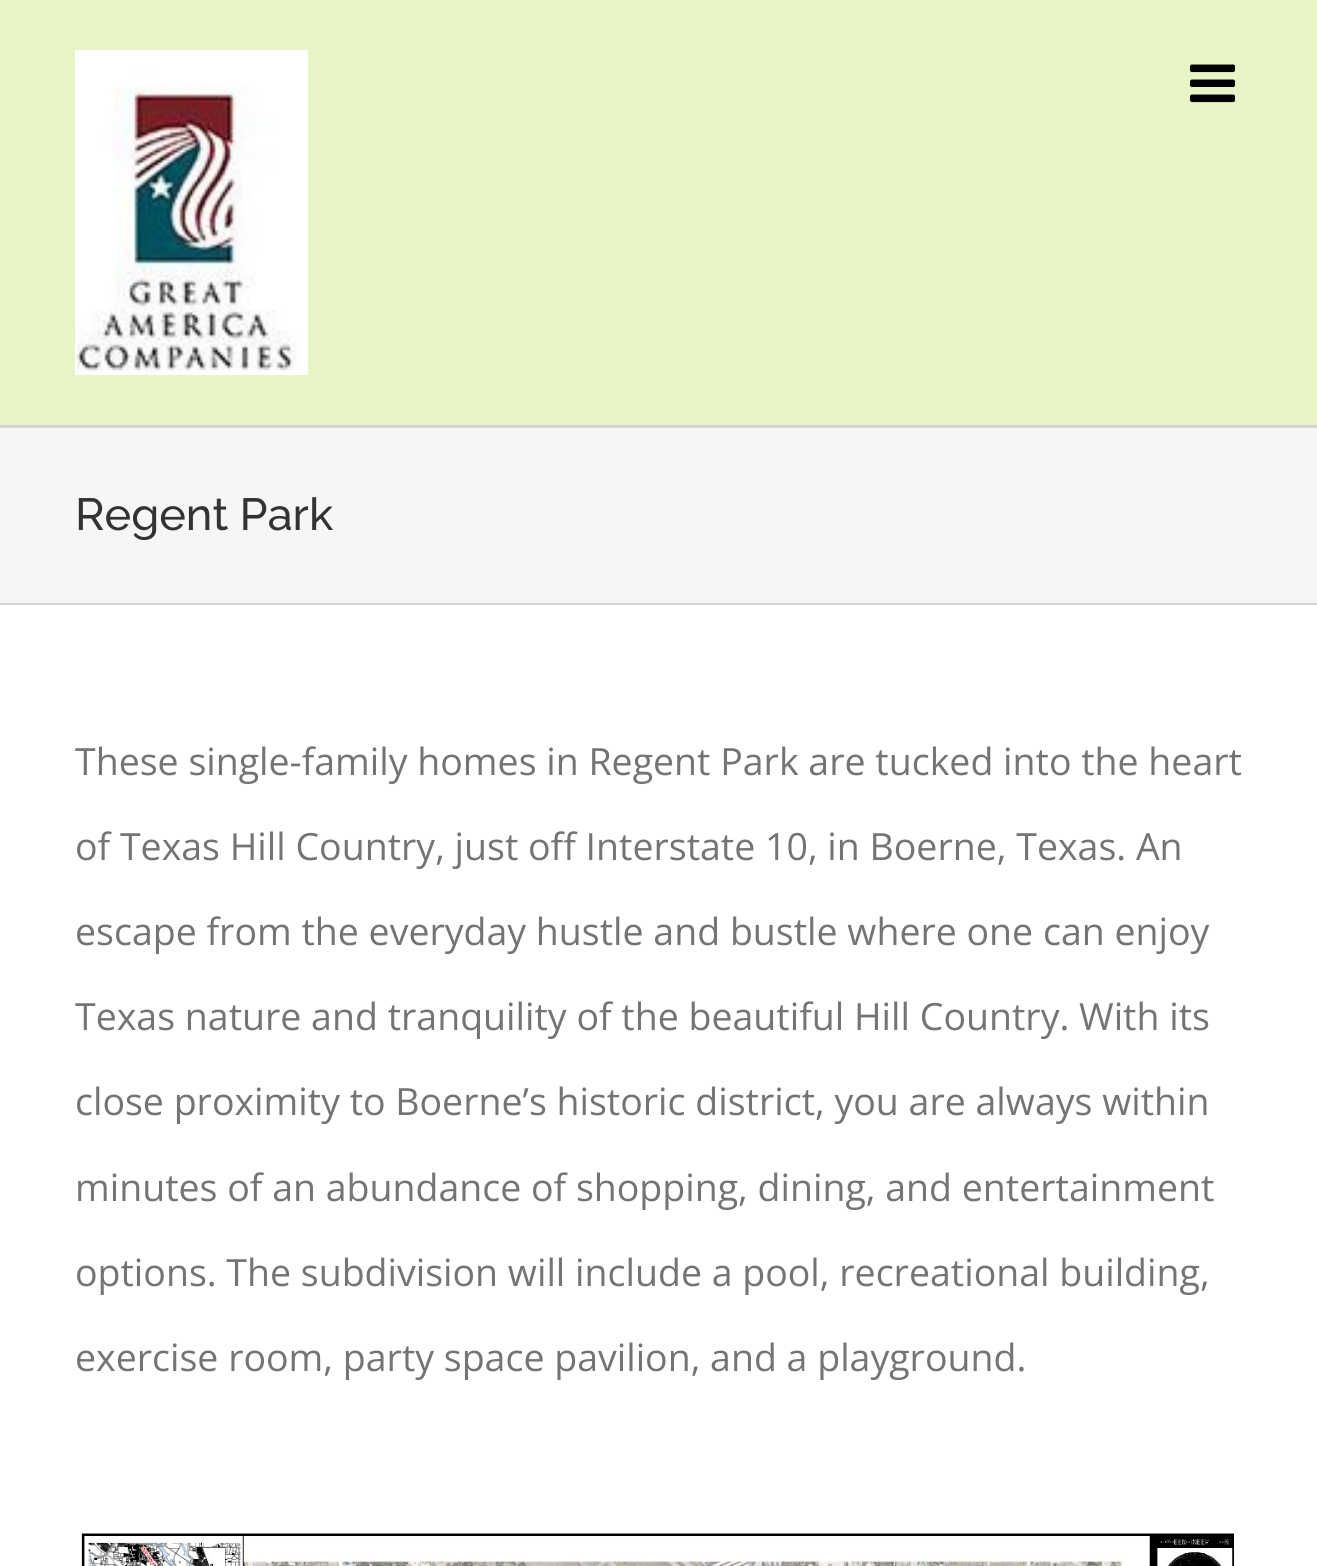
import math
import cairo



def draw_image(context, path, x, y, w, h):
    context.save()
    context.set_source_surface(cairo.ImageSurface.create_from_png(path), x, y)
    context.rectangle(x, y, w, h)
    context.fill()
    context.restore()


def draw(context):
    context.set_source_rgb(246 / 255, 246 / 255, 246 / 255)
    context.paint()
    context.set_source_rgb(231 / 255, 244 / 255, 197 / 255)
    context.rectangle(0, 0, 1317, 425)
    context.fill()
    draw_image(context, "images/1.png", 75, 50, 233, 325)
    draw_image(context, "images/2.png", 1190, 64, 45, 39)
    context.set_source_rgb(210 / 255, 211 / 255, 212 / 255)
    context.rectangle(0, 425, 1317, 3)
    context.fill()
    context.rectangle(0, 603, 1317, 2)
    context.fill()
    context.set_source_rgb(1, 1, 1)
    context.rectangle(0, 605, 1317, 961)
    context.fill()
    draw_image(context, "images/3.png", 81, 1529, 1158, 37)
    context.select_font_face("Raleway Thin")
    context.set_font_size(45)
    context.set_source_rgb(51 / 255, 51 / 255, 51 / 255)
    context.move_to(75, 530)
    context.show_text("Regent Park")
    context.select_font_face("Open Sans")
    context.set_font_size(37.5)
    context.set_source_rgb(116 / 255, 116 / 255, 116 / 255)
    context.move_to(75, 775)
    context.show_text("These single-family homes in Regent Park are tucked into the heart")
    context.move_to(75, 860)
    context.show_text("of Texas Hill Country, just off Interstate 10, in Boerne, Texas. An")
    context.move_to(75, 945)
    context.show_text("escape from the everyday hustle and bustle where one can enjoy")
    context.move_to(75, 1030)
    context.show_text("Texas nature and tranquility of the beautiful Hill Country. With its")
    context.move_to(75, 1115)
    context.show_text("close proximity to Boerne’s historic district, you are always within")
    context.move_to(75, 1201)
    context.show_text("minutes of an abundance of shopping, dining, and entertainment")
    context.move_to(75, 1286)
    context.show_text("options. The subdivision will include a pool, recreational building,")
    context.move_to(75, 1371)
    context.show_text("exercise room, party space pavilion, and a playground.")


surface = cairo.ImageSurface(cairo.Format.RGB24, 1317, 1566)
context = cairo.Context(surface)
options = cairo.FontOptions()
options.set_hint_metrics(cairo.HintMetrics.OFF)
options.set_hint_style(cairo.HintStyle.NONE)
context.set_font_options(options)
context.set_miter_limit(4)
draw(context)
surface.write_to_png("out.png")
